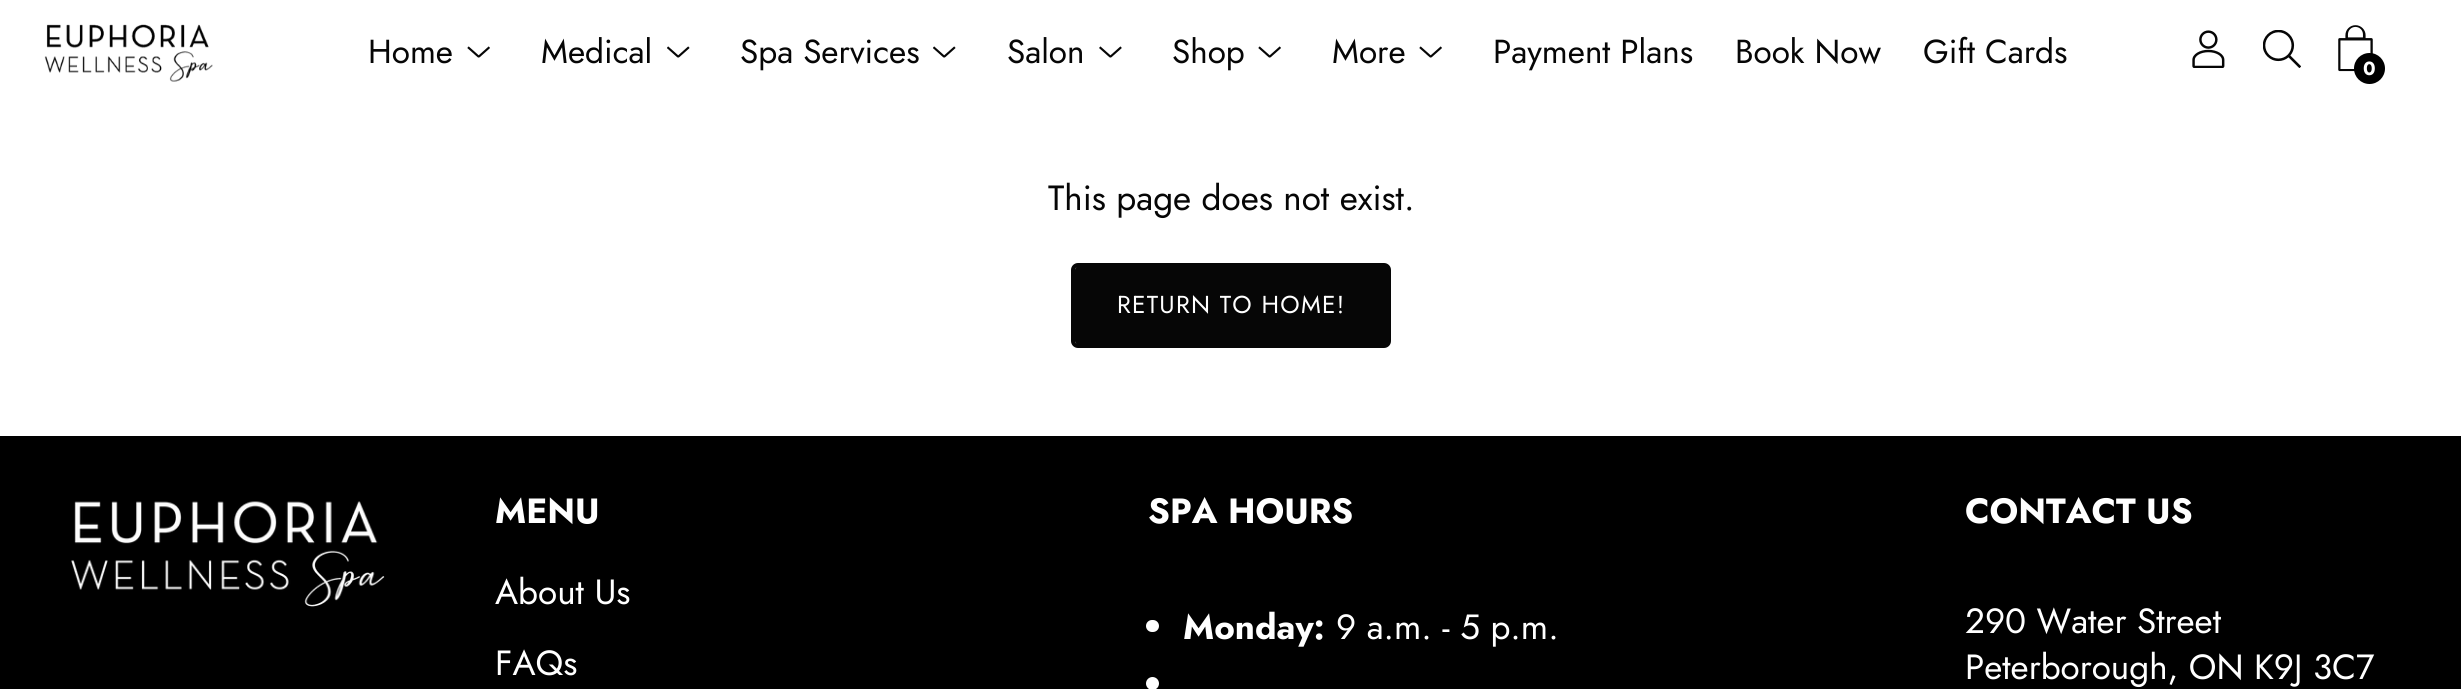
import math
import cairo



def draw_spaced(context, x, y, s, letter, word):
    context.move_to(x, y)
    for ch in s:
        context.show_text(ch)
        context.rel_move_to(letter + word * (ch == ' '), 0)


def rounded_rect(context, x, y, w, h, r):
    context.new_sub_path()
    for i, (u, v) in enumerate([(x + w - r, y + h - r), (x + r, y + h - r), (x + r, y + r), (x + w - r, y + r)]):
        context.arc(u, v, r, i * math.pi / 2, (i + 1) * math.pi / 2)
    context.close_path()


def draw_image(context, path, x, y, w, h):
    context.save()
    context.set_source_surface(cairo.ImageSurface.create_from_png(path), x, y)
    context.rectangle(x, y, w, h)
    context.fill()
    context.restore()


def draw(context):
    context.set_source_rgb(1, 1, 1)
    context.paint()
    draw_image(context, "images/1.png", 44, 24, 169, 58)
    draw_image(context, "images/2.png", 467, 46, 23, 12)
    draw_image(context, "images/3.png", 667, 46, 23, 12)
    draw_image(context, "images/3.png", 933, 46, 23, 12)
    draw_image(context, "images/4.png", 1099, 46, 23, 12)
    draw_image(context, "images/2.png", 1258, 46, 23, 12)
    draw_image(context, "images/2.png", 1419, 46, 23, 12)
    draw_image(context, "images/5.png", 2192, 30, 33, 38)
    draw_image(context, "images/6.png", 2263, 30, 38, 38)
    draw_image(context, "images/7.png", 2338, 25, 35, 47)
    context.set_source_rgb(0, 0, 0)
    context.arc(2369.5, 68.5, 15.5, 0, 2 * math.pi)
    context.fill()
    rounded_rect(context, 1073, 265, 316, 81, 5)
    context.set_source_rgb(6 / 255, 6 / 255, 6 / 255)
    context.set_line_width(4)
    context.stroke()
    rounded_rect(context, 1075, 266, 313, 79, 4)
    context.fill()
    context.set_source_rgb(0, 0, 0)
    context.rectangle(0, 436, 2461, 253)
    context.fill()
    draw_image(context, "images/8.png", 71, 501, 314, 106)
    context.set_source_rgb(1, 1, 1)
    rounded_rect(context, 1146, 620, 13, 12, 6)
    context.fill()
    context.arc(1152.5, 683.5, 6.5, 0, 2 * math.pi)
    context.fill()
    context.select_font_face("Jost")
    context.set_font_size(33.25)
    context.set_source_rgb(6 / 255, 6 / 255, 6 / 255)
    context.move_to(368, 63)
    context.show_text("Home")
    context.move_to(541, 63)
    context.show_text("Medical")
    context.move_to(740, 63)
    context.show_text("Spa Services")
    context.move_to(1007, 63)
    context.show_text("Salon")
    context.move_to(1172, 63)
    context.show_text("Shop")
    context.move_to(1332, 63)
    context.show_text("More")
    context.move_to(1493, 63)
    context.show_text("Payment Plans")
    context.move_to(1735, 63)
    context.show_text("Book Now")
    context.move_to(1923, 63)
    context.show_text("Gift Cards")
    context.select_font_face("Jost", cairo.FontSlant.NORMAL, cairo.FontWeight.BOLD)
    context.set_font_size(19)
    context.set_source_rgb(1, 1, 1)
    context.move_to(2363, 75)
    context.show_text("0")
    context.select_font_face("Jost")
    context.set_font_size(35)
    context.set_source_rgb(6 / 255, 6 / 255, 6 / 255)
    context.move_to(1048, 210)
    context.show_text("This page does not exist.")
    context.set_font_size(24.5)
    context.set_source_rgb(1, 1, 1)
    draw_spaced(context, 1117, 313, "RETURN TO HOME!", 1.25, 0)
    context.select_font_face("Jost", cairo.FontSlant.NORMAL, cairo.FontWeight.BOLD)
    context.set_font_size(35)
    context.move_to(495, 523)
    context.show_text("MENU")
    context.select_font_face("Jost")
    context.move_to(495, 604)
    context.show_text("About Us")
    context.move_to(495, 675)
    context.show_text("FAQs")
    context.select_font_face("Jost", cairo.FontSlant.NORMAL, cairo.FontWeight.BOLD)
    context.move_to(1148, 523)
    context.show_text("SPA HOURS")
    context.move_to(1183, 639)
    context.show_text("Monday:")
    context.select_font_face("Jost")
    context.move_to(1336, 639)
    context.show_text("9 a.m. - 5 p.m.")
    context.select_font_face("Jost", cairo.FontSlant.NORMAL, cairo.FontWeight.BOLD)
    context.move_to(1965, 523)
    context.show_text("CONTACT US")
    context.select_font_face("Jost")
    context.move_to(1965, 633)
    context.show_text("290 Water Street")
    context.move_to(1965, 679)
    context.show_text("Peterborough, ON K9J 3C7")


surface = cairo.ImageSurface(cairo.Format.RGB24, 2461, 689)
context = cairo.Context(surface)
options = cairo.FontOptions()
options.set_hint_metrics(cairo.HintMetrics.OFF)
options.set_hint_style(cairo.HintStyle.NONE)
context.set_font_options(options)
context.set_miter_limit(4)
draw(context)
surface.write_to_png("out.png")
